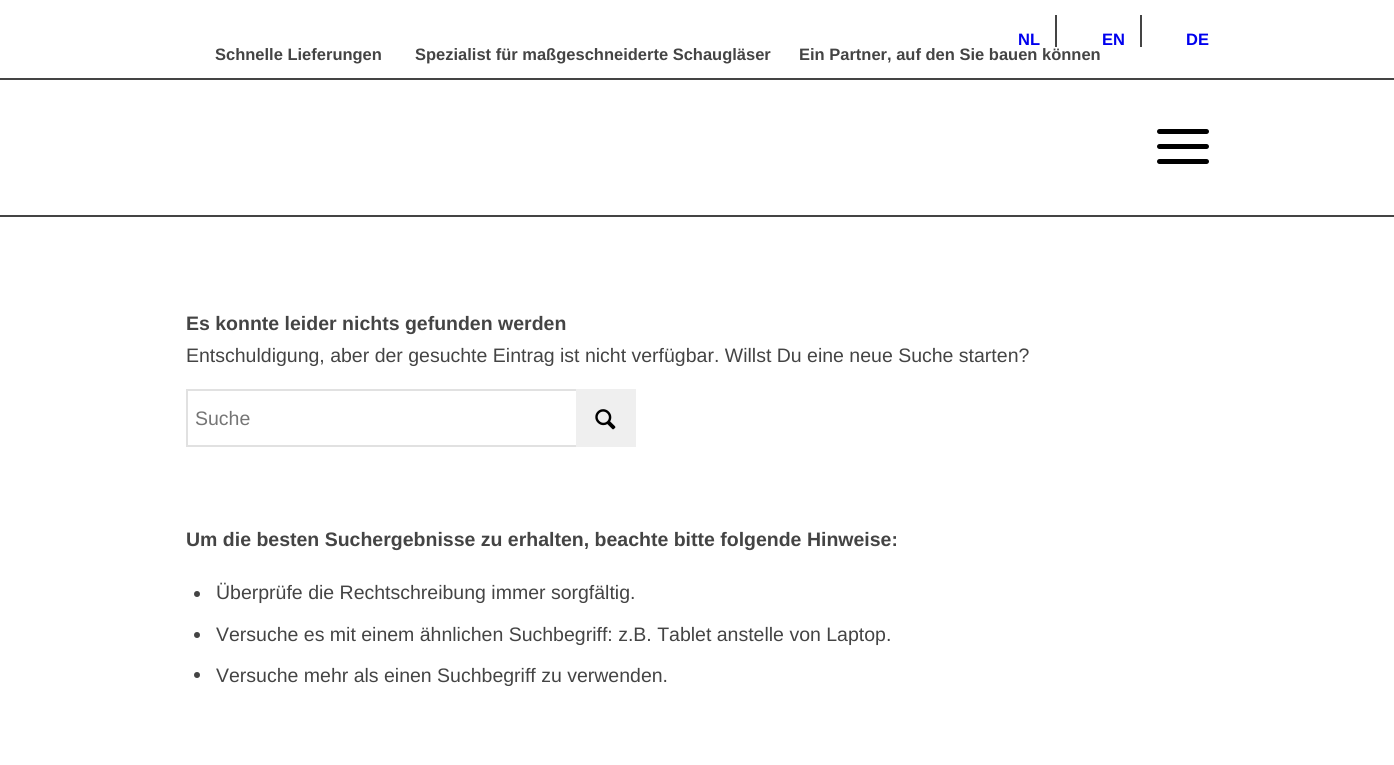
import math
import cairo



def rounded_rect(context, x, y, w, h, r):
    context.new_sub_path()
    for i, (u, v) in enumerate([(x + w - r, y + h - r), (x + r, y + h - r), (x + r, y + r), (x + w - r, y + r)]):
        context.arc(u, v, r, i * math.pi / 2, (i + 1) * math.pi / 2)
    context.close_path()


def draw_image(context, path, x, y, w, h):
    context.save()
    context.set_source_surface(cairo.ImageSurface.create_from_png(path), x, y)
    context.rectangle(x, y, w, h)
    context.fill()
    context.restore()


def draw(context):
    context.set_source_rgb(1, 1, 1)
    context.paint()
    context.set_source_rgb(68 / 255, 68 / 255, 68 / 255)
    context.rectangle(1055, 15, 2, 32)
    context.fill()
    context.rectangle(1140, 15, 2, 32)
    context.fill()
    context.rectangle(0, 78, 1394, 2)
    context.fill()
    context.rectangle(0, 215, 1394, 2)
    context.fill()
    context.set_source_rgb(0, 0, 0)
    rounded_rect(context, 1157, 144, 52, 5, 2.5)
    context.fill()
    rounded_rect(context, 1157, 129, 52, 5, 2.5)
    context.fill()
    rounded_rect(context, 1157, 159, 52, 5, 2.5)
    context.fill()
    context.rectangle(187, 390, 448, 56)
    context.set_source_rgb(225 / 255, 225 / 255, 225 / 255)
    context.stroke()
    context.set_source_rgb(239 / 255, 239 / 255, 239 / 255)
    context.rectangle(576, 389, 60, 58)
    context.fill()
    draw_image(context, "images/1.png", 595, 409, 21, 21)
    context.set_source_rgb(68 / 255, 68 / 255, 68 / 255)
    context.arc(197, 594, 3, 0, 2 * math.pi)
    context.fill()
    context.arc(197, 635, 3, 0, 2 * math.pi)
    context.fill()
    context.arc(197, 675, 3, 0, 2 * math.pi)
    context.fill()
    context.select_font_face("Liberation Sans", cairo.FontSlant.NORMAL, cairo.FontWeight.BOLD)
    context.set_font_size(16.5)
    context.set_source_rgb(0, 0, 238 / 255)
    context.move_to(1018, 45)
    context.show_text("NL")
    context.move_to(1102, 45)
    context.show_text("EN")
    context.move_to(1186, 45)
    context.show_text("DE")
    context.set_source_rgb(68 / 255, 68 / 255, 68 / 255)
    context.move_to(215, 60)
    context.show_text("Schnelle Lieferungen")
    context.move_to(415, 60)
    context.show_text("Spezialist für maßgeschneiderte Schaugläser")
    context.move_to(799, 60)
    context.show_text("Ein Partner, auf den Sie bauen können")
    context.set_font_size(19.5)
    context.move_to(186, 330)
    context.show_text("Es konnte leider nichts gefunden werden")
    context.select_font_face("Liberation Sans")
    context.move_to(186, 362)
    context.show_text("Entschuldigung, aber der gesuchte Eintrag ist nicht verfügbar. Willst Du eine neue Suche starten?")
    context.set_source_rgb(117 / 255, 117 / 255, 117 / 255)
    context.move_to(195, 425)
    context.show_text("Suche")
    context.select_font_face("Liberation Sans", cairo.FontSlant.NORMAL, cairo.FontWeight.BOLD)
    context.set_source_rgb(68 / 255, 68 / 255, 68 / 255)
    context.move_to(186, 546)
    context.show_text("Um die besten Suchergebnisse zu erhalten, beachte bitte folgende Hinweise:")
    context.select_font_face("Liberation Sans")
    context.move_to(216, 599)
    context.show_text("Überprüfe die Rechtschreibung immer sorgfältig.")
    context.move_to(216, 641)
    context.show_text("Versuche es mit einem ähnlichen Suchbegriff: z.B. Tablet anstelle von Laptop.")
    context.move_to(216, 682)
    context.show_text("Versuche mehr als einen Suchbegriff zu verwenden.")


surface = cairo.ImageSurface(cairo.Format.RGB24, 1394, 765)
context = cairo.Context(surface)
options = cairo.FontOptions()
options.set_hint_metrics(cairo.HintMetrics.OFF)
options.set_hint_style(cairo.HintStyle.NONE)
context.set_font_options(options)
context.set_miter_limit(4)
draw(context)
surface.write_to_png("out.png")
